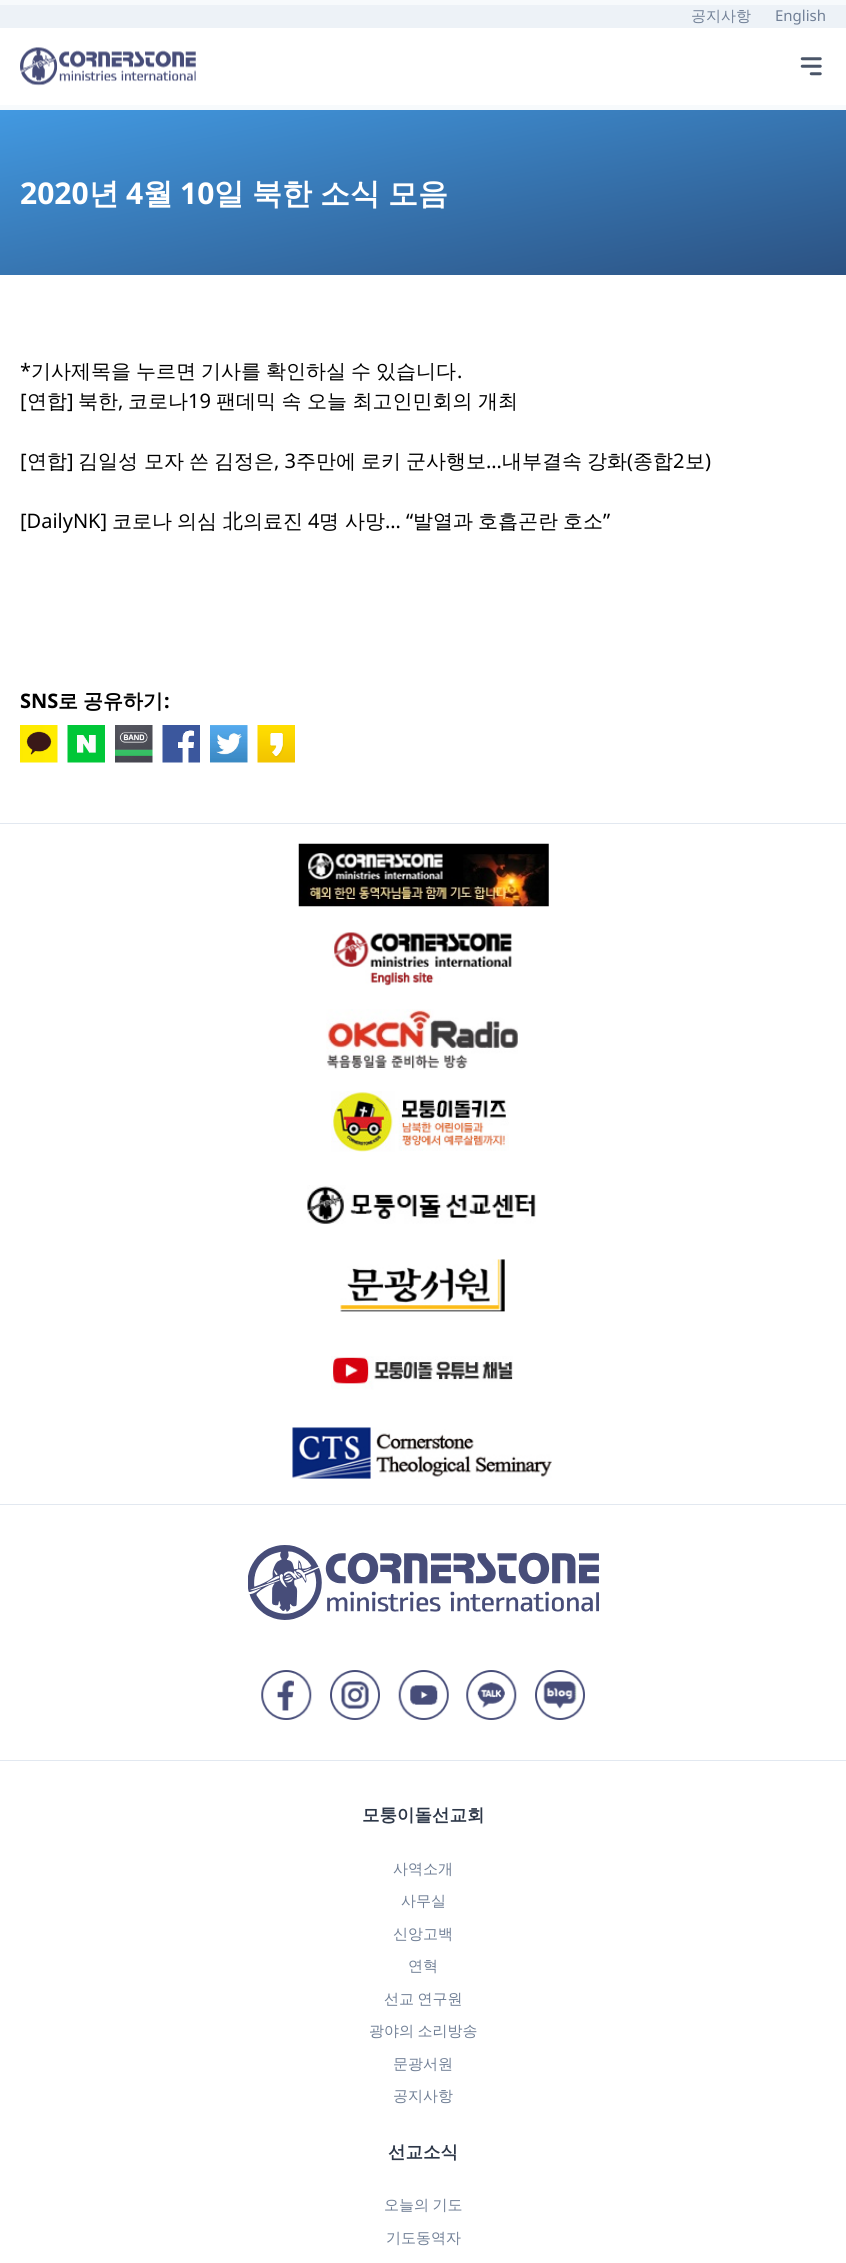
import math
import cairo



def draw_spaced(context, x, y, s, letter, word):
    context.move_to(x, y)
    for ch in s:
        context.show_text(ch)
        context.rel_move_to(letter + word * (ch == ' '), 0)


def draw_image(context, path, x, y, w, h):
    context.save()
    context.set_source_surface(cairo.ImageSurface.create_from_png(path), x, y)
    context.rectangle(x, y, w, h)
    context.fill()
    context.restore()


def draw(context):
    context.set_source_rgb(1, 1, 1)
    context.paint()
    context.set_source_rgb(247 / 255, 250 / 255, 252 / 255)
    context.rectangle(0, 0, 846, 110)
    context.fill()
    context.set_source_rgb(237 / 255, 242 / 255, 247 / 255)
    context.rectangle(0, 5, 846, 23)
    context.fill()
    context.set_source_rgb(1, 1, 1)
    context.rectangle(0, 28, 846, 77)
    context.fill()
    draw_image(context, "images/1.png", 20, 47, 176, 39)
    draw_image(context, "images/2.png", 800, 57, 22, 19)
    gradient = cairo.LinearGradient(392, 34, 454, 351)
    gradient.add_color_stop_rgba(0, 66 / 255, 153 / 255, 225 / 255, 1)
    gradient.add_color_stop_rgba(1, 44 / 255, 82 / 255, 130 / 255, 1)
    context.set_source(gradient)
    context.rectangle(0, 110, 846, 165)
    context.fill()
    draw_image(context, "images/3.png", 20, 725, 38, 38)
    draw_image(context, "images/4.png", 67, 725, 38, 38)
    draw_image(context, "images/5.png", 115, 725, 38, 38)
    draw_image(context, "images/6.png", 162, 725, 38, 38)
    draw_image(context, "images/7.png", 210, 725, 38, 38)
    draw_image(context, "images/8.png", 257, 725, 38, 38)
    context.set_source_rgb(226 / 255, 232 / 255, 240 / 255)
    context.rectangle(0, 823, 846, 1)
    context.fill()
    draw_image(context, "images/9.png", 298, 843, 251, 64)
    draw_image(context, "images/10.png", 332, 932, 180, 54)
    draw_image(context, "images/11.png", 326, 1009, 192, 61)
    draw_image(context, "images/12.png", 331, 1091, 178, 61)
    draw_image(context, "images/13.png", 307, 1185, 229, 39)
    draw_image(context, "images/14.png", 340, 1259, 165, 53)
    draw_image(context, "images/15.png", 331, 1356, 182, 34)
    draw_image(context, "images/16.png", 292, 1427, 260, 52)
    context.rectangle(0, 1504, 846, 1)
    context.fill()
    draw_image(context, "images/17.png", 248, 1545, 351, 75)
    draw_image(context, "images/18.png", 261, 1670, 51, 50)
    draw_image(context, "images/19.png", 330, 1670, 50, 50)
    draw_image(context, "images/20.png", 398, 1670, 51, 50)
    draw_image(context, "images/21.png", 466, 1670, 51, 50)
    draw_image(context, "images/22.png", 535, 1670, 50, 50)
    context.rectangle(0, 1760, 846, 1)
    context.fill()
    context.select_font_face("WenQuanYi Zen Hei Medium")
    context.set_font_size(15)
    context.set_source_rgb(113 / 255, 128 / 255, 150 / 255)
    context.move_to(691, 21)
    context.show_text("공지사항")
    context.select_font_face("Noto Sans")
    context.move_to(775, 21)
    context.show_text("English")
    context.select_font_face("Noto Sans", cairo.FontSlant.NORMAL, cairo.FontWeight.BOLD)
    context.set_font_size(30)
    context.set_source_rgb(1, 1, 1)
    context.move_to(20, 204)
    context.show_text("2020")
    context.select_font_face("WenQuanYi Zen Hei", cairo.FontSlant.NORMAL, cairo.FontWeight.BOLD)
    context.move_to(89, 204)
    context.show_text("년")
    context.select_font_face("Noto Sans", cairo.FontSlant.NORMAL, cairo.FontWeight.BOLD)
    context.move_to(126, 204)
    context.show_text("4")
    context.select_font_face("WenQuanYi Zen Hei", cairo.FontSlant.NORMAL, cairo.FontWeight.BOLD)
    context.move_to(143, 204)
    context.show_text("월")
    context.select_font_face("Noto Sans", cairo.FontSlant.NORMAL, cairo.FontWeight.BOLD)
    context.move_to(180, 204)
    context.show_text("10")
    context.select_font_face("WenQuanYi Zen Hei", cairo.FontSlant.NORMAL, cairo.FontWeight.BOLD)
    draw_spaced(context, 214, 204, "일 북한 소식 모음", 0, -1)
    context.select_font_face("Noto Sans")
    context.set_font_size(20)
    context.set_source_rgb(0, 0, 0)
    context.move_to(20, 378)
    context.show_text("*")
    context.select_font_face("WenQuanYi Zen Hei Medium")
    draw_spaced(context, 31, 378, "기사제목을 누르면 기사를 확인하실 수 있습니다", 0, -1)
    context.select_font_face("Noto Sans")
    context.move_to(457, 378)
    context.show_text(".")
    context.move_to(20, 408)
    context.show_text("[")
    context.select_font_face("WenQuanYi Zen Hei Medium")
    context.move_to(27, 408)
    context.show_text("연합")
    context.select_font_face("Noto Sans")
    context.move_to(67, 408)
    context.show_text("]")
    context.select_font_face("WenQuanYi Zen Hei Medium")
    context.move_to(78, 408)
    context.show_text("북한")
    context.select_font_face("Noto Sans")
    context.move_to(118, 408)
    context.show_text(",")
    context.select_font_face("WenQuanYi Zen Hei Medium")
    context.move_to(128, 408)
    context.show_text("코로나")
    context.select_font_face("Noto Sans")
    context.move_to(188, 408)
    context.show_text("19")
    context.select_font_face("WenQuanYi Zen Hei Medium")
    draw_spaced(context, 216, 408, "팬데믹 속 오늘 최고인민회의 개최", 0, -0.5)
    context.select_font_face("Noto Sans")
    context.move_to(20, 468)
    context.show_text("[")
    context.select_font_face("WenQuanYi Zen Hei Medium")
    context.move_to(27, 468)
    context.show_text("연합")
    context.select_font_face("Noto Sans")
    context.move_to(67, 468)
    context.show_text("]")
    context.select_font_face("WenQuanYi Zen Hei Medium")
    context.move_to(78, 468)
    context.show_text("김일성")
    context.move_to(144, 468)
    context.show_text("모자")
    context.move_to(189, 468)
    context.show_text("쓴")
    context.move_to(214, 468)
    context.show_text("김정은")
    context.select_font_face("Noto Sans")
    context.move_to(274, 468)
    context.show_text(", 3")
    context.select_font_face("WenQuanYi Zen Hei Medium")
    context.move_to(296, 468)
    context.show_text("주만에")
    context.move_to(361, 468)
    context.show_text("로키")
    context.move_to(406, 468)
    context.show_text("군사행보")
    context.move_to(502, 468)
    context.show_text("내부결속")
    context.move_to(587, 468)
    context.show_text("강화 종합")
    context.select_font_face("Noto Sans")
    context.move_to(486, 468)
    context.show_text("…")
    context.move_to(627, 468)
    context.show_text("(")
    context.move_to(673, 468)
    context.show_text("2")
    context.select_font_face("WenQuanYi Zen Hei Medium")
    context.move_to(685, 468)
    context.show_text("보")
    context.select_font_face("Noto Sans")
    context.move_to(705, 468)
    context.show_text(")")
    context.move_to(20, 528)
    context.show_text("[DailyNK]")
    context.select_font_face("WenQuanYi Zen Hei Medium")
    context.move_to(112, 528)
    context.show_text("코로나")
    context.move_to(177, 528)
    context.show_text("의심")
    context.move_to(223, 528)
    context.show_text("北의료진")
    context.select_font_face("Noto Sans")
    context.move_to(308, 528)
    context.show_text("4")
    context.select_font_face("WenQuanYi Zen Hei Medium")
    context.move_to(319, 528)
    context.show_text("명")
    context.move_to(345, 528)
    context.show_text("사망")
    context.select_font_face("Noto Sans")
    context.move_to(385, 528)
    context.show_text("… “")
    context.select_font_face("WenQuanYi Zen Hei Medium")
    context.move_to(413, 528)
    context.show_text("발열과")
    context.move_to(478, 528)
    context.show_text("호흡곤란")
    context.move_to(563, 528)
    context.show_text("호소")
    context.select_font_face("Noto Sans")
    context.move_to(603, 528)
    context.show_text("”")
    context.select_font_face("Noto Sans", cairo.FontSlant.NORMAL, cairo.FontWeight.BOLD)
    context.move_to(20, 708)
    context.show_text("SNS")
    context.select_font_face("WenQuanYi Zen Hei", cairo.FontSlant.NORMAL, cairo.FontWeight.BOLD)
    draw_spaced(context, 58, 708, "로 공유하기", 0, -1)
    context.select_font_face("Noto Sans", cairo.FontSlant.NORMAL, cairo.FontWeight.BOLD)
    context.move_to(164, 708)
    context.show_text(":")
    context.select_font_face("WenQuanYi Zen Hei", cairo.FontSlant.NORMAL, cairo.FontWeight.BOLD)
    context.set_font_size(17.5)
    context.set_source_rgb(45 / 255, 55 / 255, 72 / 255)
    context.move_to(362, 1821)
    context.show_text("모퉁이돌선교회")
    context.select_font_face("WenQuanYi Zen Hei Medium")
    context.set_font_size(15)
    context.set_source_rgb(113 / 255, 128 / 255, 150 / 255)
    context.move_to(393, 1874)
    context.show_text("사역소개")
    context.move_to(401, 1906)
    context.show_text("사무실")
    context.move_to(393, 1939)
    context.show_text("신앙고백")
    context.move_to(408, 1971)
    context.show_text("연혁")
    draw_spaced(context, 384, 2004, "선교 연구원", 0, -1)
    draw_spaced(context, 369, 2036, "광야의 소리방송", 0, -1)
    context.move_to(393, 2069)
    context.show_text("문광서원")
    context.move_to(393, 2101)
    context.show_text("공지사항")
    context.select_font_face("WenQuanYi Zen Hei", cairo.FontSlant.NORMAL, cairo.FontWeight.BOLD)
    context.set_font_size(17.5)
    context.set_source_rgb(45 / 255, 55 / 255, 72 / 255)
    context.move_to(388, 2158)
    context.show_text("선교소식")
    context.select_font_face("WenQuanYi Zen Hei Medium")
    context.set_font_size(15)
    context.set_source_rgb(113 / 255, 128 / 255, 150 / 255)
    draw_spaced(context, 384, 2210, "오늘의 기도", 0, -1)
    context.move_to(386, 2243)
    context.show_text("기도동역자")


surface = cairo.ImageSurface(cairo.Format.RGB24, 846, 2263)
context = cairo.Context(surface)
options = cairo.FontOptions()
options.set_hint_metrics(cairo.HintMetrics.OFF)
options.set_hint_style(cairo.HintStyle.NONE)
context.set_font_options(options)
context.set_miter_limit(4)
draw(context)
surface.write_to_png("out.png")
